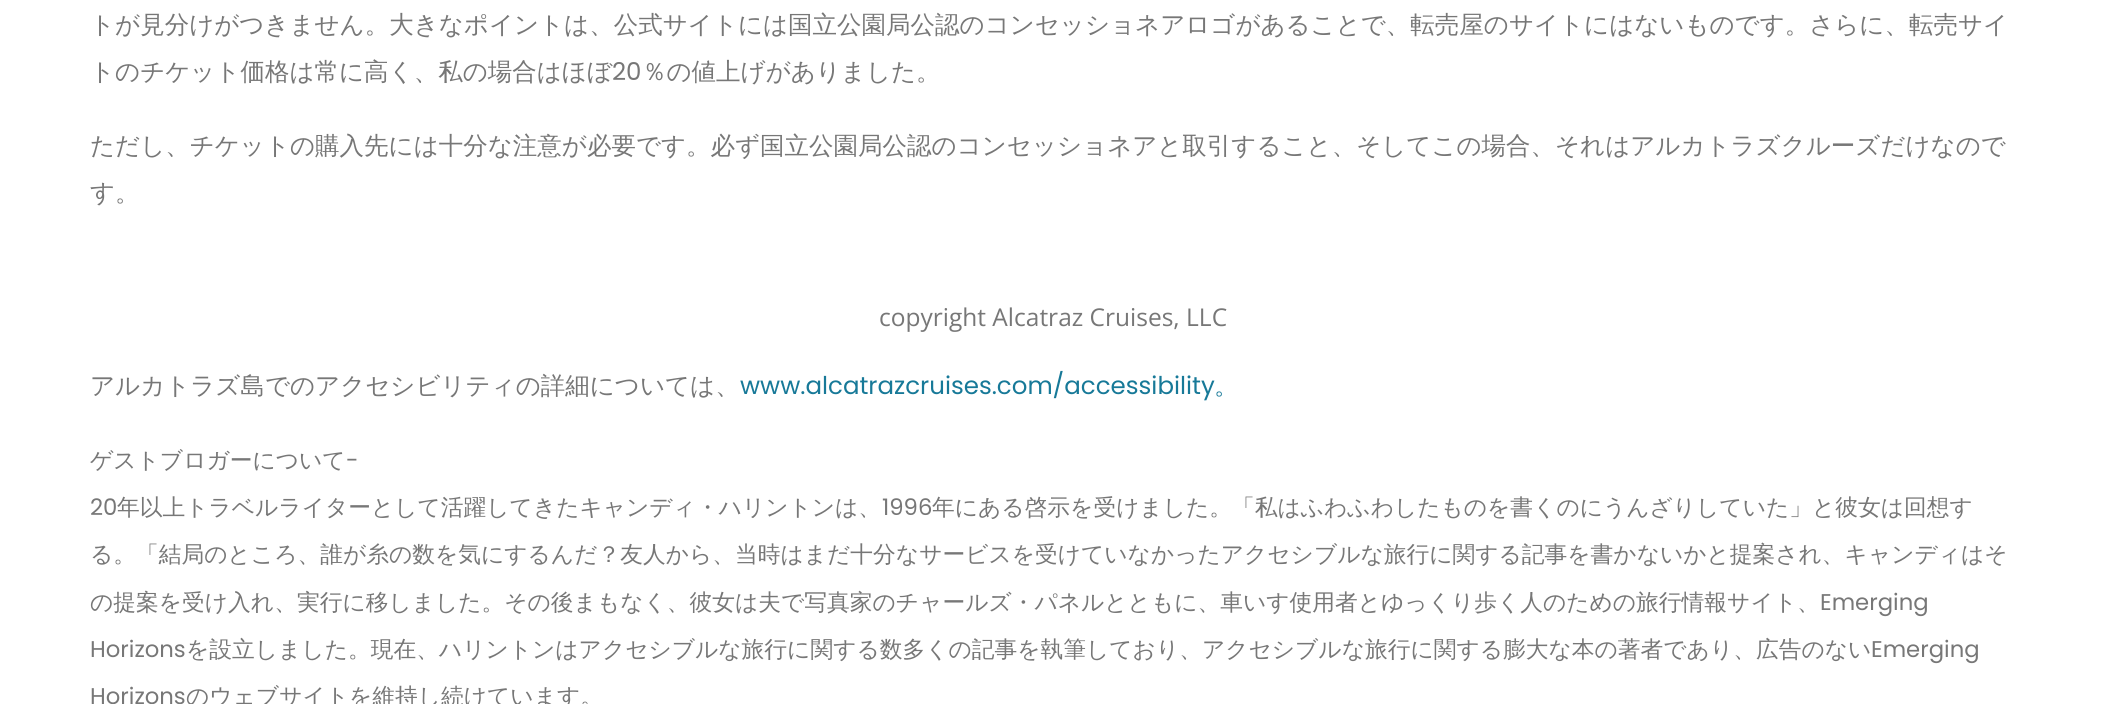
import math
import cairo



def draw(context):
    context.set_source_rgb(1, 1, 1)
    context.paint()
    context.select_font_face("WenQuanYi Zen Hei Medium")
    context.set_font_size(24.5)
    context.set_source_rgb(119 / 255, 119 / 255, 119 / 255)
    context.move_to(90, 33)
    context.show_text("トが見分けがつきません。大きなポイントは、公式サイトには国立公園局公認のコンセッショネアロゴがあることで、転売屋のサイトにはないものです。さらに、転売サイ")
    context.move_to(90, 80)
    context.show_text("トのチケット価格は常に高く、私の場合はほぼ")
    context.select_font_face("Poppins")
    context.move_to(612, 80)
    context.show_text("20")
    context.select_font_face("WenQuanYi Zen Hei Medium")
    context.move_to(642, 80)
    context.show_text("％の値上げがありました。")
    context.move_to(90, 154)
    context.show_text("ただし、チケットの購入先には十分な注意が必要です。必ず国立公園局公認のコンセッショネアと取引すること、そしてこの場合、それはアルカトラズクルーズだけなので")
    context.move_to(90, 201)
    context.show_text("す。")
    context.select_font_face("Open Sans")
    context.move_to(879, 326)
    context.show_text("copyright Alcatraz Cruises, LLC")
    context.select_font_face("WenQuanYi Zen Hei Medium")
    context.move_to(90, 394)
    context.show_text("アルカトラズ島でのアクセシビリティの詳細については、")
    context.select_font_face("Poppins")
    context.set_source_rgb(23 / 255, 121 / 255, 152 / 255)
    context.move_to(740, 394)
    context.show_text("www.alcatrazcruises.com/accessibility")
    context.select_font_face("WenQuanYi Zen Hei Medium")
    context.move_to(1214, 394)
    context.show_text("。")
    context.set_font_size(22.75)
    context.set_source_rgb(119 / 255, 119 / 255, 119 / 255)
    context.move_to(90, 468)
    context.show_text("ゲストブロガーについて")
    context.select_font_face("Poppins")
    context.move_to(346, 468)
    context.show_text("-")
    context.move_to(90, 515)
    context.show_text("20")
    context.select_font_face("WenQuanYi Zen Hei Medium")
    context.move_to(117, 515)
    context.show_text("年以上トラベルライターとして活躍してきたキャンディ・ハリントンは、")
    context.select_font_face("Poppins")
    context.move_to(882, 515)
    context.show_text("1996")
    context.select_font_face("WenQuanYi Zen Hei Medium")
    context.move_to(932, 515)
    context.show_text("年にある啓示を受けました。「私はふわふわしたものを書くのにうんざりしていた」と彼女は回想す")
    context.move_to(90, 562)
    context.show_text("る。「結局のところ、誰が糸の数を気にするんだ？友人から、当時はまだ十分なサービスを受けていなかったアクセシブルな旅行に関する記事を書かないかと提案され、キャンディはそ")
    context.move_to(90, 610)
    context.show_text("の提案を受け入れ、実行に移しました。その後まもなく、彼女は夫で写真家のチャールズ・パネルとともに、車いす使用者とゆっくり歩く人のための旅行情報サイト、")
    context.select_font_face("Poppins")
    context.move_to(1820, 610)
    context.show_text("Emerging")
    context.move_to(90, 657)
    context.show_text("Horizons")
    context.select_font_face("WenQuanYi Zen Hei Medium")
    context.move_to(186, 657)
    context.show_text("を設立しました。現在、ハリントンはアクセシブルな旅行に関する数多くの記事を執筆しており、アクセシブルな旅行に関する膨大な本の著者であり、広告のない")
    context.select_font_face("Poppins")
    context.move_to(1871, 657)
    context.show_text("Emerging")
    context.move_to(90, 704)
    context.show_text("Horizons")
    context.select_font_face("WenQuanYi Zen Hei Medium")
    context.move_to(186, 704)
    context.show_text("のウェブサイトを維持し続けています。")


surface = cairo.ImageSurface(cairo.Format.RGB24, 2104, 704)
context = cairo.Context(surface)
options = cairo.FontOptions()
options.set_hint_metrics(cairo.HintMetrics.OFF)
options.set_hint_style(cairo.HintStyle.NONE)
context.set_font_options(options)
context.set_miter_limit(4)
draw(context)
surface.write_to_png("out.png")
